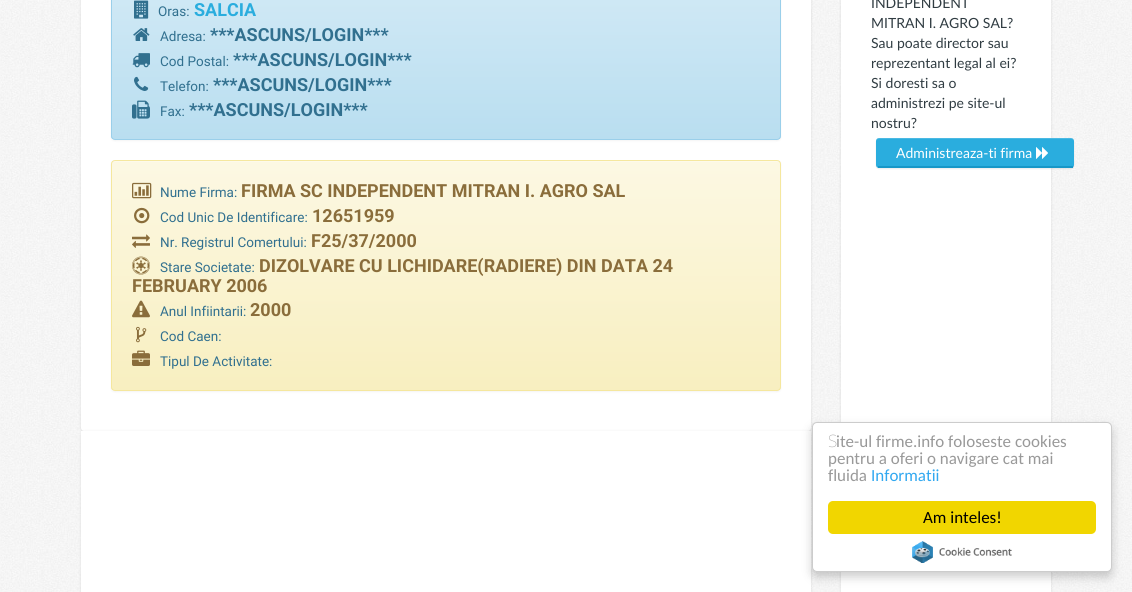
import math
import cairo



def rounded_rect(context, x, y, w, h, r):
    context.new_sub_path()
    for i, (u, v) in enumerate([(x + w - r, y + h - r), (x + r, y + h - r), (x + r, y + r), (x + w - r, y + r)]):
        context.arc(u, v, r, i * math.pi / 2, (i + 1) * math.pi / 2)
    context.close_path()


def draw_shadow(context, x, y, w, h, r, blur, alpha):
    context.push_group_with_content(cairo.Content.ALPHA)
    context.set_operator(cairo.Operator.SOURCE)
    for i in range(15, -16, -2):
        e = blur * i / 6
        if min(w, h) + 2 * e > 0:
            context.set_source_rgba(0, 0, 0, alpha * math.erfc((i - 1) / 8.5) / 2)
            rounded_rect(context, x - e, y - e, w + 2 * e, h + 2 * e, max(0, min(r + e + blur * .6, min(w, h) / 2 + e)))
            context.fill()
    context.mask(context.pop_group())


def draw_image(context, path, x, y, w, h):
    context.save()
    context.set_source_surface(cairo.ImageSurface.create_from_png(path), x, y)
    context.rectangle(x, y, w, h)
    context.fill()
    context.restore()


def draw(context):
    context.set_source_rgb(1, 1, 1)
    context.paint()
    draw_image(context, "images/1.png", 0, 0, 1132, 592)
    context.set_source_rgb(0, 0, 0)
    draw_shadow(context, 81, -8, 730, 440, 3, 1.5, 0.1)
    context.set_source_rgb(1, 1, 1)
    context.new_path()
    context.move_to(81, -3)
    context.line_to(811, -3)
    context.line_to(811, 428)
    context.curve_to(811, 429.5, 809.5, 431, 808, 431)
    context.line_to(84, 431)
    context.curve_to(82.5, 431, 81, 429.5, 81, 428)
    context.close_path()
    context.fill()
    context.set_source_rgb(0, 0, 0)
    draw_shadow(context, 111, -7, 670, 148, 4, 1, 0.05)
    context.save()
    rounded_rect(context, 111, -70, 670, 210, 4)
    context.clip()
    gradient = cairo.LinearGradient(446, -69, 446, 139)
    gradient.add_color_stop_rgba(0, 217 / 255, 237 / 255, 247 / 255, 1)
    gradient.add_color_stop_rgba(1, 185 / 255, 222 / 255, 240 / 255, 1)
    context.set_source(gradient)
    context.rectangle(111, 0, 670, 139)
    context.fill()
    context.restore()
    rounded_rect(context, 111.5, -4.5, 669, 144, 3.5)
    context.set_source_rgb(154 / 255, 207 / 255, 234 / 255)
    context.set_line_width(1)
    context.stroke()
    draw_image(context, "images/2.png", 134, 0, 15, 19)
    draw_image(context, "images/3.png", 133, 28, 17, 13)
    draw_image(context, "images/4.png", 132, 53, 18, 15)
    draw_image(context, "images/5.png", 134, 76, 15, 15)
    draw_image(context, "images/6.png", 132, 100, 18, 19)
    context.set_source_rgb(0, 0, 0)
    draw_shadow(context, 111, 161, 670, 231, 4, 1, 0.05)
    context.save()
    rounded_rect(context, 111, 160, 670, 231, 4)
    context.clip()
    gradient = cairo.LinearGradient(446, 161, 446, 390)
    gradient.add_color_stop_rgba(0, 252 / 255, 248 / 255, 227 / 255, 1)
    gradient.add_color_stop_rgba(1, 248 / 255, 239 / 255, 192 / 255, 1)
    context.set_source(gradient)
    context.rectangle(111, 161, 670, 229)
    context.fill()
    context.restore()
    context.set_source_rgb(253 / 255, 250 / 255, 234 / 255)
    context.new_path()
    context.move_to(115, 162)
    context.line_to(777, 162)
    context.curve_to(779, 162, 780, 163, 780, 165)
    context.line_to(780, 164)
    context.curve_to(780, 162, 779, 161, 777, 161)
    context.line_to(115, 161)
    context.curve_to(113, 161, 112, 162, 112, 164)
    context.line_to(112, 165)
    context.curve_to(112, 163, 113, 162, 115, 162)
    context.close_path()
    context.fill()
    rounded_rect(context, 111.5, 160.5, 669, 230, 3.5)
    context.set_source_rgb(245 / 255, 231 / 255, 158 / 255)
    context.stroke()
    draw_image(context, "images/7.png", 132, 182, 20, 17)
    draw_image(context, "images/8.png", 134, 207, 16, 17)
    draw_image(context, "images/9.png", 132, 234, 18, 14)
    draw_image(context, "images/10.png", 132, 256, 18, 19)
    draw_image(context, "images/11.png", 132, 300, 18, 18)
    draw_image(context, "images/12.png", 136, 326, 11, 17)
    draw_image(context, "images/13.png", 132, 350, 18, 16)
    context.set_source_rgb(0, 0, 0)
    draw_shadow(context, 81, 432, 730, 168, 3, 1.5, 0.1)
    context.set_source_rgb(1, 1, 1)
    context.rectangle(81, 431, 730, 161)
    context.fill()
    context.set_source_rgb(0, 0, 0)
    draw_shadow(context, 841, -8, 210, 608, 3, 1.5, 0.1)
    context.set_source_rgb(1, 1, 1)
    context.rectangle(841, 0, 210, 592)
    context.fill()
    context.set_source_rgb(0, 0, 0)
    draw_shadow(context, 876, 139, 198, 30, 3, 0.5, 0.07)
    context.set_source_rgb(42 / 255, 173 / 255, 222 / 255)
    rounded_rect(context, 876, 138, 198, 30, 3)
    context.fill()
    context.set_source_rgba(1, 1, 1, 0.15)
    context.new_path()
    context.move_to(879, 139)
    context.line_to(1071, 139)
    context.curve_to(1073, 139, 1074, 140, 1074, 142)
    context.curve_to(1074, 140, 1073, 138, 1071, 138)
    context.line_to(879, 138)
    context.curve_to(877, 138, 876, 140, 876, 142)
    context.curve_to(876, 140, 877, 139, 879, 139)
    context.close_path()
    context.fill()
    context.set_source_rgb(23 / 255, 151 / 255, 199 / 255)
    context.rectangle(878, 166, 195, 2)
    context.fill()
    draw_image(context, "images/14.png", 1036, 147, 12, 12)
    context.set_source_rgb(0, 0, 0)
    draw_shadow(context, 812, 427, 300, 150, 5, 5, 0.2)
    context.set_source_rgb(1, 1, 1)
    rounded_rect(context, 812.5, 422.5, 299, 149, 4.5)
    context.fill_preserve()
    context.set_source_rgb(204 / 255, 204 / 255, 204 / 255)
    context.stroke()
    context.set_source_rgb(241 / 255, 214 / 255, 0)
    rounded_rect(context, 828, 501, 268, 33, 5)
    context.fill()
    draw_image(context, "images/15.png", 912, 541, 100, 22)
    context.select_font_face("Roboto")
    context.set_font_size(13.5)
    context.set_source_rgb(49 / 255, 112 / 255, 143 / 255)
    context.move_to(158, 16)
    context.show_text("Oras:")
    context.select_font_face("Roboto", cairo.FontSlant.NORMAL, cairo.FontWeight.BOLD)
    context.set_font_size(18)
    context.set_source_rgb(42 / 255, 173 / 255, 222 / 255)
    context.move_to(194, 16)
    context.show_text("SALCIA")
    context.select_font_face("Roboto")
    context.set_font_size(13.5)
    context.set_source_rgb(49 / 255, 112 / 255, 143 / 255)
    context.move_to(160, 41)
    context.show_text("Adresa:")
    context.select_font_face("Roboto", cairo.FontSlant.NORMAL, cairo.FontWeight.BOLD)
    context.set_font_size(18)
    context.move_to(210, 41)
    context.show_text("***ASCUNS/LOGIN***")
    context.select_font_face("Roboto")
    context.set_font_size(13.5)
    context.move_to(160, 66)
    context.show_text("Cod Postal:")
    context.select_font_face("Roboto", cairo.FontSlant.NORMAL, cairo.FontWeight.BOLD)
    context.set_font_size(18)
    context.move_to(233, 66)
    context.show_text("***ASCUNS/LOGIN***")
    context.select_font_face("Roboto")
    context.set_font_size(13.5)
    context.move_to(160, 91)
    context.show_text("Telefon:")
    context.select_font_face("Roboto", cairo.FontSlant.NORMAL, cairo.FontWeight.BOLD)
    context.set_font_size(18)
    context.move_to(213, 91)
    context.show_text("***ASCUNS/LOGIN***")
    context.select_font_face("Roboto")
    context.set_font_size(13.5)
    context.move_to(160, 116)
    context.show_text("Fax:")
    context.select_font_face("Roboto", cairo.FontSlant.NORMAL, cairo.FontWeight.BOLD)
    context.set_font_size(18)
    context.move_to(189, 116)
    context.show_text("***ASCUNS/LOGIN***")
    context.select_font_face("Roboto")
    context.set_font_size(13.5)
    context.move_to(160, 197)
    context.show_text("Nume Firma:")
    context.select_font_face("Roboto", cairo.FontSlant.NORMAL, cairo.FontWeight.BOLD)
    context.set_font_size(18)
    context.set_source_rgb(138 / 255, 109 / 255, 59 / 255)
    context.move_to(241, 197)
    context.show_text("FIRMA SC INDEPENDENT MITRAN I. AGRO SAL")
    context.select_font_face("Roboto")
    context.set_font_size(13.5)
    context.set_source_rgb(49 / 255, 112 / 255, 143 / 255)
    context.move_to(160, 222)
    context.show_text("Cod Unic De Identificare:")
    context.select_font_face("Roboto", cairo.FontSlant.NORMAL, cairo.FontWeight.BOLD)
    context.set_font_size(18)
    context.set_source_rgb(138 / 255, 109 / 255, 59 / 255)
    context.move_to(312, 222)
    context.show_text("12651959")
    context.select_font_face("Roboto")
    context.set_font_size(13.5)
    context.set_source_rgb(49 / 255, 112 / 255, 143 / 255)
    context.move_to(160, 247)
    context.show_text("Nr. Registrul Comertului:")
    context.select_font_face("Roboto", cairo.FontSlant.NORMAL, cairo.FontWeight.BOLD)
    context.set_font_size(18)
    context.set_source_rgb(138 / 255, 109 / 255, 59 / 255)
    context.move_to(311, 247)
    context.show_text("F25/37/2000")
    context.select_font_face("Roboto")
    context.set_font_size(13.5)
    context.set_source_rgb(49 / 255, 112 / 255, 143 / 255)
    context.move_to(160, 272)
    context.show_text("Stare Societate:")
    context.select_font_face("Roboto", cairo.FontSlant.NORMAL, cairo.FontWeight.BOLD)
    context.set_font_size(18)
    context.set_source_rgb(138 / 255, 109 / 255, 59 / 255)
    context.move_to(259, 272)
    context.show_text("DIZOLVARE CU LICHIDARE(RADIERE) DIN DATA 24")
    context.move_to(132, 292)
    context.show_text("FEBRUARY 2006")
    context.select_font_face("Roboto")
    context.set_font_size(13.5)
    context.set_source_rgb(49 / 255, 112 / 255, 143 / 255)
    context.move_to(160, 316)
    context.show_text("Anul Infiintarii:")
    context.select_font_face("Roboto", cairo.FontSlant.NORMAL, cairo.FontWeight.BOLD)
    context.set_font_size(18)
    context.set_source_rgb(138 / 255, 109 / 255, 59 / 255)
    context.move_to(250, 316)
    context.show_text("2000")
    context.select_font_face("Roboto")
    context.set_font_size(13.5)
    context.set_source_rgb(49 / 255, 112 / 255, 143 / 255)
    context.move_to(160, 341)
    context.show_text("Cod Caen:")
    context.move_to(160, 366)
    context.show_text("Tipul De Activitate:")
    context.select_font_face("Lato")
    context.set_font_size(14)
    context.set_source_rgb(48 / 255, 60 / 255, 66 / 255)
    context.move_to(871, 8)
    context.show_text("INDEPENDENT")
    context.move_to(871, 28)
    context.show_text("MITRAN I. AGRO SAL?")
    context.move_to(871, 48)
    context.show_text("Sau poate director sau")
    context.move_to(871, 68)
    context.show_text("reprezentant legal al ei?")
    context.move_to(871, 88)
    context.show_text("Si doresti sa o")
    context.move_to(871, 108)
    context.show_text("administrezi pe site-ul")
    context.move_to(871, 128)
    context.show_text("nostru?")
    context.set_source_rgb(1, 1, 1)
    context.move_to(896, 158)
    context.show_text("Administreaza-ti firma")
    context.select_font_face("Noto Sans Thin")
    context.set_font_size(17)
    context.set_source_rgb(153 / 255, 153 / 255, 153 / 255)
    context.move_to(828, 447)
    context.show_text("S")
    context.select_font_face("Carlito")
    context.move_to(836, 447)
    context.show_text("ite-ul firme.info foloseste cookies")
    context.move_to(828, 464)
    context.show_text("pentru a oferi o navigare cat mai")
    context.move_to(828, 481)
    context.show_text("fluida")
    context.set_source_rgb(49 / 255, 168 / 255, 240 / 255)
    context.move_to(871, 481)
    context.show_text("Informatii")
    context.set_source_rgb(0, 0, 0)
    context.move_to(923, 523)
    context.show_text("Am inteles!")


surface = cairo.ImageSurface(cairo.Format.RGB24, 1132, 592)
context = cairo.Context(surface)
options = cairo.FontOptions()
options.set_hint_metrics(cairo.HintMetrics.OFF)
options.set_hint_style(cairo.HintStyle.NONE)
context.set_font_options(options)
context.set_miter_limit(4)
draw(context)
surface.write_to_png("out.png")
